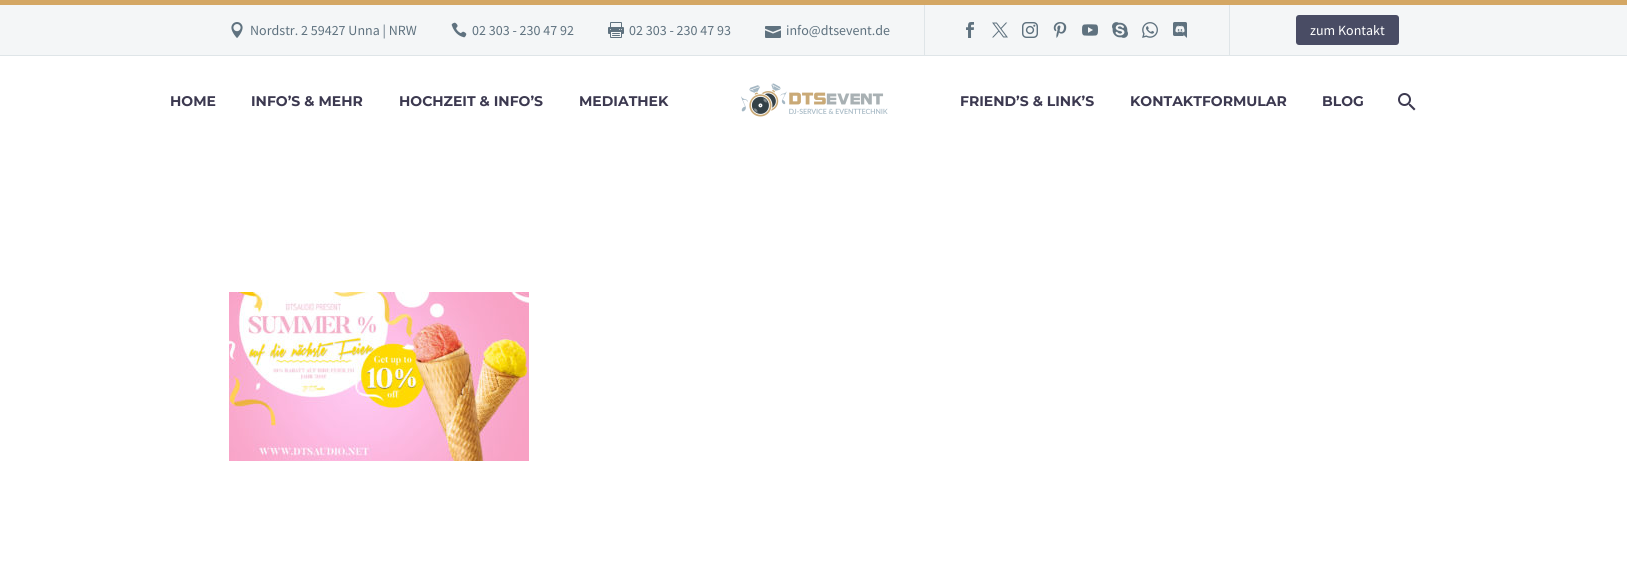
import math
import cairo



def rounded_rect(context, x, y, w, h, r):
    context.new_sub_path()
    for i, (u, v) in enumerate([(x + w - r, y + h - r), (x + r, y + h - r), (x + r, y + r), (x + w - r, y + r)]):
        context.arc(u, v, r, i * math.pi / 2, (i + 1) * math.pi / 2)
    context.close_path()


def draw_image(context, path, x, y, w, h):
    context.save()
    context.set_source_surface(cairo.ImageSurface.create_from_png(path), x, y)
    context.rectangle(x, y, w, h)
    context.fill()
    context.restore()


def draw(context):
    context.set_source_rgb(1, 1, 1)
    context.paint()
    context.set_source_rgb(244 / 255, 246 / 255, 247 / 255)
    context.rectangle(0, 5, 1627, 50)
    context.fill()
    context.set_source_rgb(212 / 255, 167 / 255, 100 / 255)
    context.rectangle(0, 0, 1627, 5)
    context.fill()
    context.set_source_rgb(223 / 255, 229 / 255, 232 / 255)
    context.rectangle(0, 55, 1627, 1)
    context.fill()
    draw_image(context, "images/1.png", 231, 22, 12, 16)
    draw_image(context, "images/2.png", 451, 22, 16, 16)
    draw_image(context, "images/3.png", 608, 22, 16, 16)
    draw_image(context, "images/4.png", 765, 26, 16, 12)
    context.rectangle(924, 5, 1, 50)
    context.fill()
    draw_image(context, "images/5.png", 966, 22, 8, 16)
    draw_image(context, "images/6.png", 992, 22, 16, 16)
    draw_image(context, "images/7.png", 1022, 22, 16, 16)
    draw_image(context, "images/8.png", 1053, 22, 14, 16)
    draw_image(context, "images/9.png", 1082, 24, 16, 12)
    draw_image(context, "images/10.png", 1112, 22, 16, 16)
    draw_image(context, "images/11.png", 1142, 22, 16, 16)
    draw_image(context, "images/12.png", 1173, 22, 14, 16)
    context.rectangle(1229, 5, 1, 50)
    context.fill()
    context.set_source_rgb(73 / 255, 76 / 255, 100 / 255)
    rounded_rect(context, 1296, 15, 103, 30, 3)
    context.fill()
    draw_image(context, "images/13.png", 741, 83, 147, 34)
    draw_image(context, "images/14.png", 1398, 93, 18, 18)
    draw_image(context, "images/15.png", 229, 292, 300, 169)
    context.select_font_face("Source Sans Pro")
    context.set_font_size(14)
    context.set_source_rgb(95 / 255, 114 / 255, 127 / 255)
    context.move_to(250, 35)
    context.show_text("Nordstr. 2 59427 Unna | NRW")
    context.move_to(472, 35)
    context.show_text("02 303 - 230 47 92")
    context.move_to(629, 35)
    context.show_text("02 303 - 230 47 93")
    context.move_to(786, 35)
    context.show_text("info@dtsevent.de")
    context.set_source_rgb(1, 1, 1)
    context.move_to(1310, 35)
    context.show_text("zum Kontakt")
    context.select_font_face("Montserrat", cairo.FontSlant.NORMAL, cairo.FontWeight.BOLD)
    context.set_source_rgb(60 / 255, 57 / 255, 80 / 255)
    context.move_to(170, 106)
    context.show_text("HOME")
    context.move_to(251, 106)
    context.show_text("INFO’S & MEHR")
    context.move_to(399, 106)
    context.show_text("HOCHZEIT & INFO’S")
    context.move_to(579, 106)
    context.show_text("MEDIATHEK")
    context.move_to(960, 106)
    context.show_text("FRIEND’S & LINK’S")
    context.move_to(1130, 106)
    context.show_text("KONTAKTFORMULAR")
    context.move_to(1322, 106)
    context.show_text("BLOG")


surface = cairo.ImageSurface(cairo.Format.RGB24, 1627, 566)
context = cairo.Context(surface)
options = cairo.FontOptions()
options.set_hint_metrics(cairo.HintMetrics.OFF)
options.set_hint_style(cairo.HintStyle.NONE)
context.set_font_options(options)
context.set_miter_limit(4)
draw(context)
surface.write_to_png("out.png")
